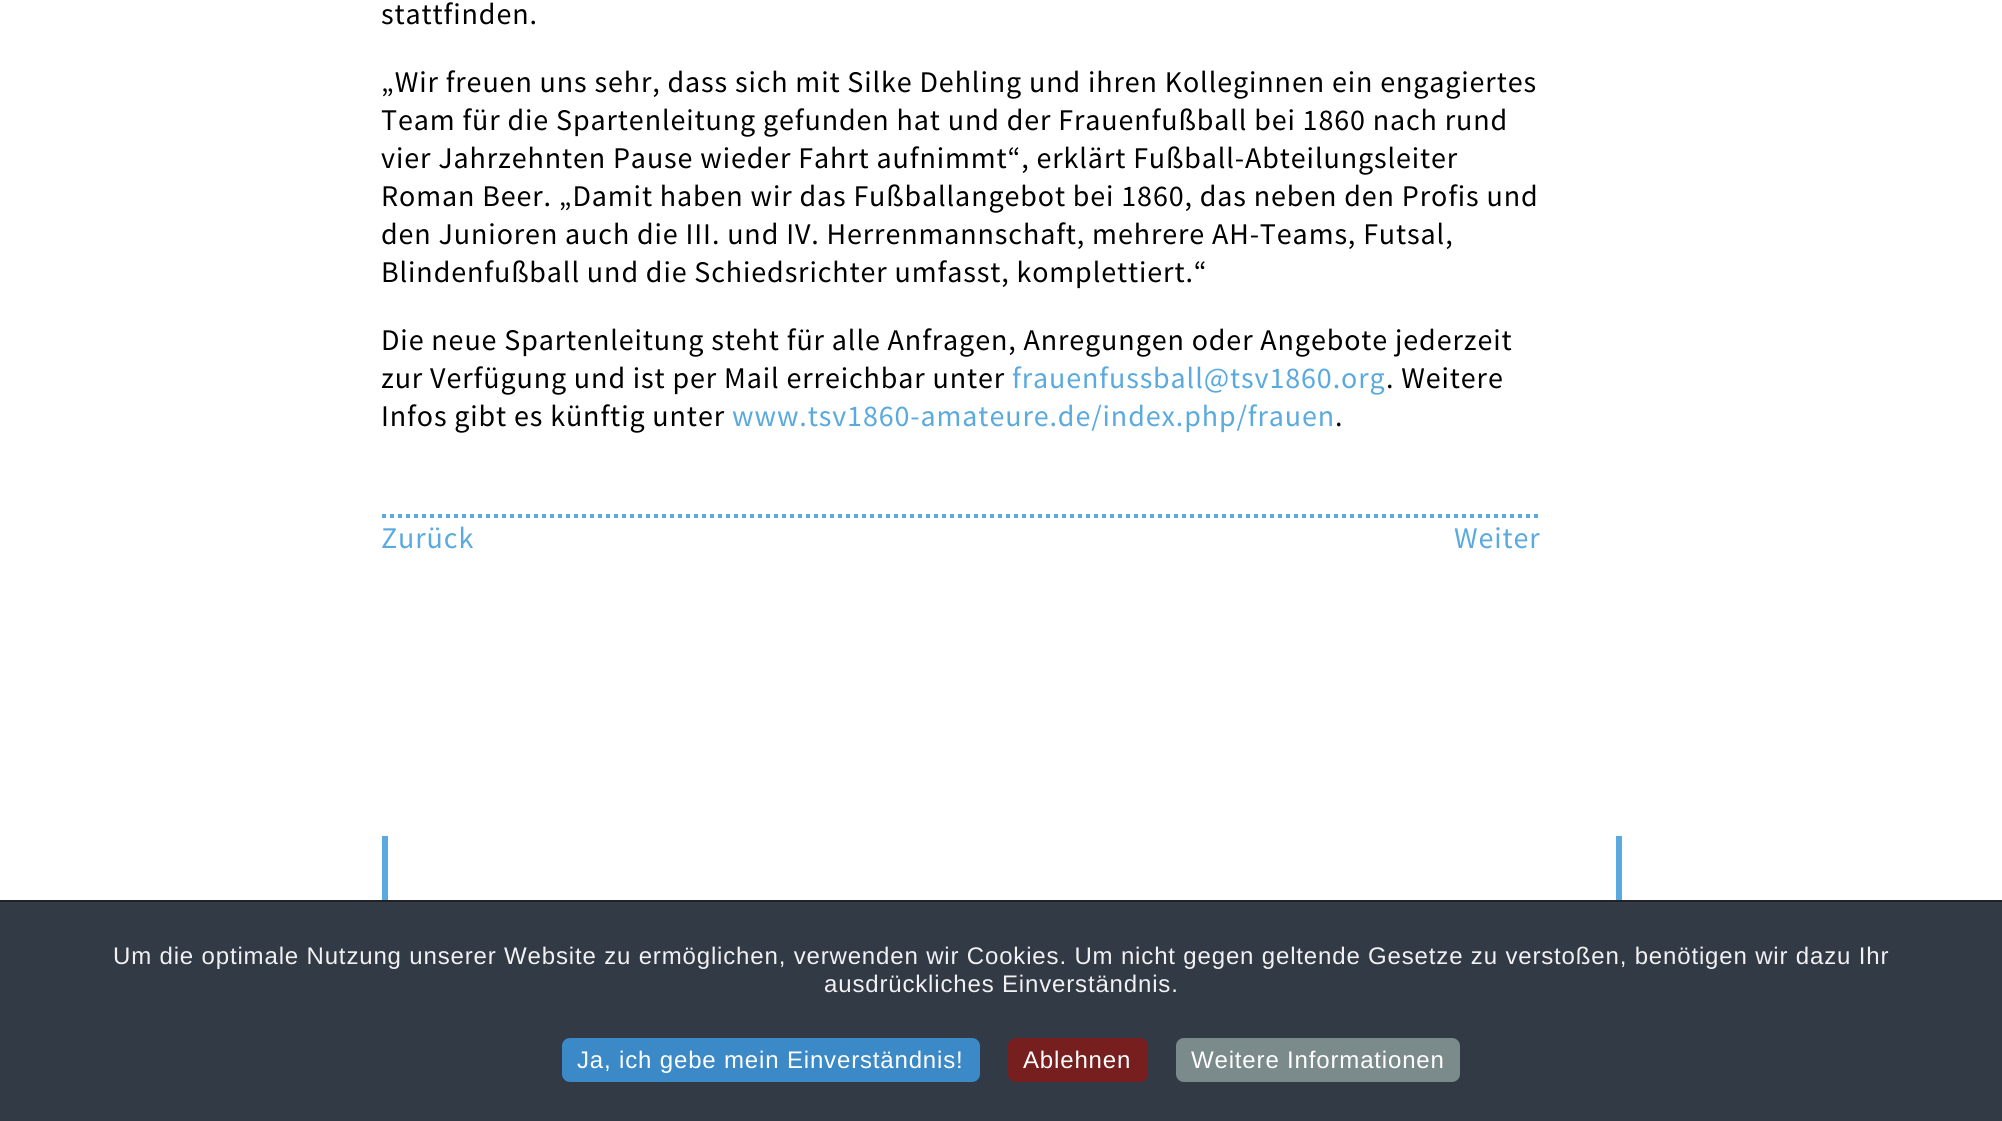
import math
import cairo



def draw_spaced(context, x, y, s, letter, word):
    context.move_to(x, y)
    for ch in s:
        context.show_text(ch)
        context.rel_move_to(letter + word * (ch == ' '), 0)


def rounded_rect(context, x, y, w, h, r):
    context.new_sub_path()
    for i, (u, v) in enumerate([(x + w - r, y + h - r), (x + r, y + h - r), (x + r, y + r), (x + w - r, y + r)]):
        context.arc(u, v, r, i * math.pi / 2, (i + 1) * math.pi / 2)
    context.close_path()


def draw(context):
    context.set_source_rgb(1, 1, 1)
    context.paint()
    context.new_path()
    context.move_to(382, 516)
    context.line_to(1542, 516)
    context.set_source_rgb(90 / 255, 170 / 255, 223 / 255)
    context.set_line_width(4)
    context.set_dash([4, 4])
    context.stroke()
    context.rectangle(1616, 836, 6, 64)
    context.fill()
    context.rectangle(382, 836, 6, 64)
    context.fill()
    context.set_source_rgb(50 / 255, 58 / 255, 69 / 255)
    context.rectangle(0, 902, 2002, 219)
    context.fill()
    context.set_source_rgb(32 / 255, 34 / 255, 38 / 255)
    context.rectangle(0, 900, 2002, 2)
    context.fill()
    context.set_source_rgb(59 / 255, 137 / 255, 199 / 255)
    rounded_rect(context, 562, 1038, 418, 44, 8)
    context.fill()
    context.set_source_rgb(119 / 255, 31 / 255, 31 / 255)
    rounded_rect(context, 1008, 1038, 140, 44, 8)
    context.fill()
    context.set_source_rgb(123 / 255, 138 / 255, 139 / 255)
    rounded_rect(context, 1176, 1038, 284, 44, 8)
    context.fill()
    context.select_font_face("Source Sans Pro")
    context.set_font_size(30)
    context.set_source_rgb(0, 0, 0)
    draw_spaced(context, 381, 24, "stattfinden.", 0.9, 0)
    draw_spaced(context, 381, 92, "„Wir freuen uns sehr, dass sich mit Silke Dehling und ihren Kolleginnen ein engagiertes", 0.9, 0)
    draw_spaced(context, 381, 130, "Team für die Spartenleitung gefunden hat und der Frauenfußball bei 1860 nach rund", 0.9, 0)
    draw_spaced(context, 381, 168, "vier Jahrzehnten Pause wieder Fahrt aufnimmt“, erklärt Fußball-Abteilungsleiter", 0.9, 0)
    draw_spaced(context, 381, 206, "Roman Beer. „Damit haben wir das Fußballangebot bei 1860, das neben den Profis und", 0.9, 0)
    draw_spaced(context, 381, 244, "den Junioren auch die III. und IV. Herrenmannschaft, mehrere AH-Teams, Futsal,", 0.9, 0)
    draw_spaced(context, 381, 282, "Blindenfußball und die Schiedsrichter umfasst, komplettiert.“", 0.9, 0)
    draw_spaced(context, 381, 350, "Die neue Spartenleitung steht für alle Anfragen, Anregungen oder Angebote jederzeit", 0.9, 0)
    draw_spaced(context, 381, 388, "zur Verfügung und ist per Mail erreichbar unter", 0.9, 0)
    context.set_source_rgb(90 / 255, 170 / 255, 223 / 255)
    draw_spaced(context, 1012, 388, "frauenfussball@tsv1860.org", 0.9, 0)
    context.set_source_rgb(0, 0, 0)
    draw_spaced(context, 1386, 388, ". Weitere", 0.9, 0)
    draw_spaced(context, 381, 426, "Infos gibt es künftig unter", 0.9, 0)
    context.set_source_rgb(90 / 255, 170 / 255, 223 / 255)
    draw_spaced(context, 732, 426, "www.tsv1860-amateure.de/index.php/frauen", 0.9, 0)
    context.set_source_rgb(0, 0, 0)
    draw_spaced(context, 1335, 426, ".", 0.9, 0)
    context.set_source_rgb(90 / 255, 170 / 255, 223 / 255)
    draw_spaced(context, 381, 548, "Zurück", 0.9, 0)
    draw_spaced(context, 1454, 548, "Weiter", 0.9, 0)
    context.select_font_face("Liberation Sans")
    context.set_font_size(24)
    context.set_source_rgb(241 / 255, 241 / 255, 243 / 255)
    draw_spaced(context, 113, 964, "Um die optimale Nutzung unserer Website zu ermöglichen, verwenden wir Cookies. Um nicht gegen geltende Gesetze zu verstoßen, benötigen wir dazu Ihr", 0.84, 0)
    draw_spaced(context, 824, 992, "ausdrückliches Einverständnis.", 0.84, 0)
    context.set_source_rgb(1, 1, 1)
    draw_spaced(context, 577, 1068, "Ja, ich gebe mein Einverständnis!", 0.84, 0)
    draw_spaced(context, 1023, 1068, "Ablehnen", 0.84, 0)
    draw_spaced(context, 1191, 1068, "Weitere Informationen", 0.84, 0)


surface = cairo.ImageSurface(cairo.Format.RGB24, 2002, 1121)
context = cairo.Context(surface)
options = cairo.FontOptions()
options.set_hint_metrics(cairo.HintMetrics.OFF)
options.set_hint_style(cairo.HintStyle.NONE)
context.set_font_options(options)
context.set_miter_limit(4)
draw(context)
surface.write_to_png("out.png")
